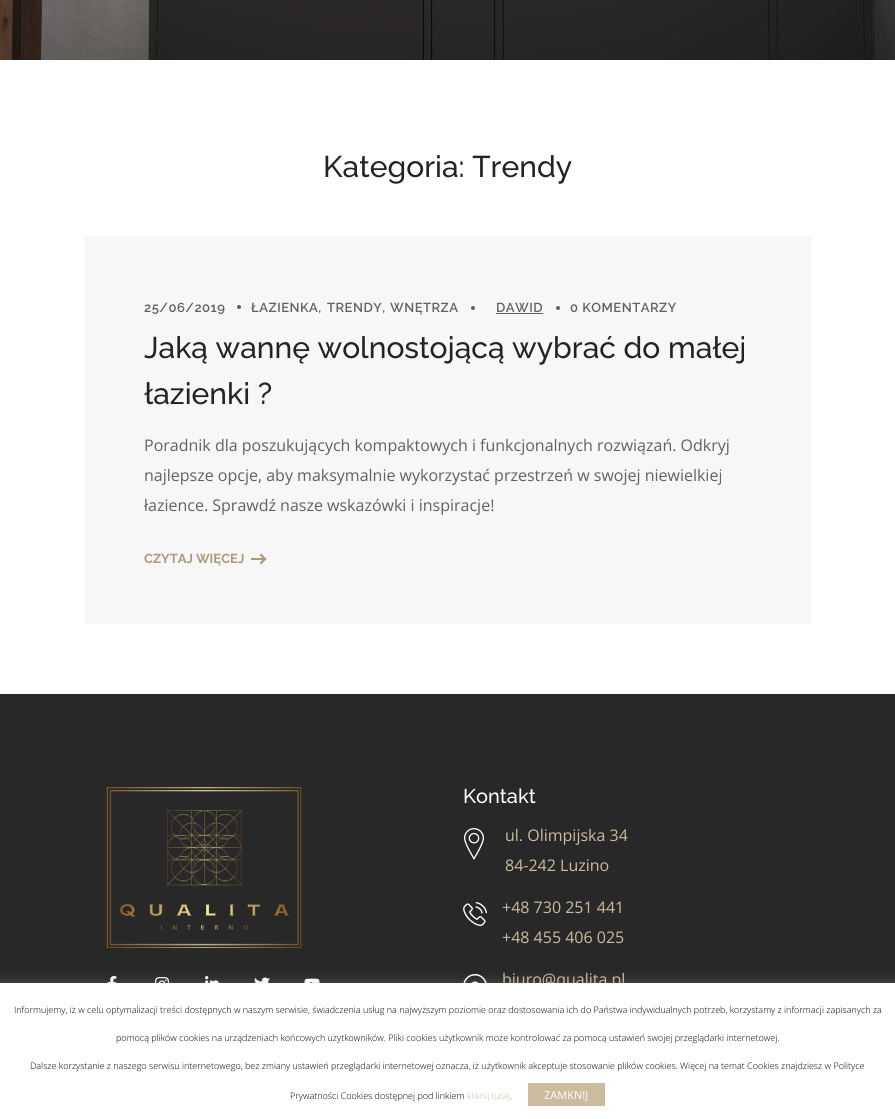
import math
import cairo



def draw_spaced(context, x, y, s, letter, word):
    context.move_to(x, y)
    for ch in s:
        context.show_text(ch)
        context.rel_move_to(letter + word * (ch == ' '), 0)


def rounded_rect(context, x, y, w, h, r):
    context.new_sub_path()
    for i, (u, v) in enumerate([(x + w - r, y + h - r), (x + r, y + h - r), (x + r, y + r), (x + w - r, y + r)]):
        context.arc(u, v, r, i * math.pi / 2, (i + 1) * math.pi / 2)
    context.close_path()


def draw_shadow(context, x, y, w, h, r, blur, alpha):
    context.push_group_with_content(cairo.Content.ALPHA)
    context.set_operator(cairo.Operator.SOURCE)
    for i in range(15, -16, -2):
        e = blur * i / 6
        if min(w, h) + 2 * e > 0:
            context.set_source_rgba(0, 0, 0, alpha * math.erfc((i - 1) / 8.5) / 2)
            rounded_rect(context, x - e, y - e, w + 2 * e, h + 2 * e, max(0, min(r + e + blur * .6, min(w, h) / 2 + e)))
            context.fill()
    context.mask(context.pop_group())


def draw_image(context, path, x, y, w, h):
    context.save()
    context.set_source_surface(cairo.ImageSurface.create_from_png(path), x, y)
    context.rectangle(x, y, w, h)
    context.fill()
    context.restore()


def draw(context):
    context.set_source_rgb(1, 1, 1)
    context.paint()
    draw_image(context, "images/1.png", 0, 0, 895, 60)
    context.set_source_rgb(247 / 255, 247 / 255, 247 / 255)
    context.rectangle(84, 236, 728, 388)
    context.fill()
    context.set_source_rgb(97 / 255, 97 / 255, 97 / 255)
    context.arc(239, 307, 2, 0, 2 * math.pi)
    context.fill()
    context.arc(473, 308, 2, 0, 2 * math.pi)
    context.fill()
    context.rectangle(496, 313, 47, 1)
    context.fill()
    context.arc(558, 308, 2, 0, 2 * math.pi)
    context.fill()
    context.set_source_rgb(172 / 255, 155 / 255, 121 / 255)
    context.rectangle(251, 558, 14, 2)
    context.fill()
    context.new_path()
    context.move_to(261, 553.5)
    context.line_to(266.5, 559)
    context.line_to(265, 560.5)
    context.line_to(259.5, 555)
    context.close_path()
    context.fill()
    context.new_path()
    context.move_to(265, 557.5)
    context.line_to(266.5, 559)
    context.line_to(261, 564.5)
    context.line_to(259.5, 563)
    context.close_path()
    context.fill()
    context.set_source_rgb(40 / 255, 40 / 255, 40 / 255)
    context.rectangle(0, 694, 895, 289)
    context.fill()
    draw_image(context, "images/2.png", 106, 787, 196, 161)
    draw_image(context, "images/3.png", 107, 976, 10, 7)
    draw_image(context, "images/4.png", 155, 977, 14, 6)
    draw_image(context, "images/5.png", 205, 976, 14, 7)
    draw_image(context, "images/6.png", 254, 977, 16, 6)
    draw_image(context, "images/7.png", 304, 978, 16, 5)
    draw_image(context, "images/8.png", 464, 828, 20, 32)
    draw_image(context, "images/9.png", 463, 902, 24, 24)
    draw_image(context, "images/10.png", 463, 974, 24, 9)
    context.set_source_rgb(172 / 255, 171 / 255, 171 / 255)
    draw_shadow(context, 0, 982, 895, 136, 0, 5, 0.3)
    context.select_font_face("Raleway Medium")
    context.set_font_size(30)
    context.set_source_rgb(35 / 255, 35 / 255, 35 / 255)
    context.move_to(323, 177)
    context.show_text("Kategoria: Trendy")
    context.select_font_face("Raleway SemiBold")
    context.set_font_size(13)
    context.set_source_rgb(97 / 255, 97 / 255, 97 / 255)
    draw_spaced(context, 144, 312, "25/06/2019", 0.5, 0)
    draw_spaced(context, 251, 312, "ŁAZIENKA,", 0.5, 0)
    draw_spaced(context, 327, 312, "TRENDY,", 0.5, 0)
    draw_spaced(context, 390, 312, "WNĘTRZA", 0.5, 0)
    draw_spaced(context, 496, 312, "DAWID", 0.5, 0)
    draw_spaced(context, 570, 312, "0 KOMENTARZY", 0.5, 0)
    context.select_font_face("Raleway Medium")
    context.set_font_size(30)
    context.set_source_rgb(35 / 255, 35 / 255, 35 / 255)
    context.move_to(144, 358)
    context.show_text("Jaką wannę wolnostojącą wybrać do małej")
    context.move_to(144, 404)
    context.show_text("łazienki ?")
    context.select_font_face("Open Sans")
    context.set_font_size(16)
    context.set_source_rgb(97 / 255, 97 / 255, 97 / 255)
    context.move_to(144, 451)
    context.show_text("Poradnik dla poszukujących kompaktowych i funkcjonalnych rozwiązań. Odkryj")
    context.move_to(144, 481)
    context.show_text("najlepsze opcje, aby maksymalnie wykorzystać przestrzeń w swojej niewielkiej")
    context.move_to(144, 511)
    context.show_text("łazience. Sprawdź nasze wskazówki i inspiracje!")
    context.select_font_face("Raleway", cairo.FontSlant.NORMAL, cairo.FontWeight.BOLD)
    context.set_font_size(13)
    context.set_source_rgb(172 / 255, 155 / 255, 121 / 255)
    context.move_to(144, 563)
    context.show_text("CZYTAJ WIĘCEJ")
    context.select_font_face("Raleway Medium")
    context.set_font_size(20)
    context.set_source_rgb(1, 1, 1)
    context.move_to(463, 803)
    context.show_text("Kontakt")
    context.select_font_face("Open Sans")
    context.set_font_size(16)
    context.set_source_rgb(203 / 255, 188 / 255, 157 / 255)
    context.move_to(505, 841)
    context.show_text("ul. Olimpijska 34")
    context.move_to(505, 871)
    context.show_text("84-242 Luzino")
    context.move_to(502, 913)
    context.show_text("+48 730 251 441")
    context.move_to(502, 943)
    context.show_text("+48 455 406 025")
    context.move_to(502, 985)
    context.show_text("biuro@qualita.pl")
    context.set_source_rgb(1, 1, 1)
    context.rectangle(0, 983, 895, 136)
    context.fill()
    context.select_font_face("Open Sans Light")
    context.set_font_size(9)
    context.set_source_rgb(0, 0, 0)
    context.move_to(14, 1013)
    context.show_text("Informujemy, iż w celu optymalizacji treści dostępnych w naszym serwisie, świadczenia usług na najwyższym poziomie oraz dostosowania ich do Państwa indywidualnych potrzeb, korzystamy z informacji zapisanych za")
    context.move_to(116, 1041)
    context.show_text("pomocą plików cookies na urządzeniach końcowych użytkowników. Pliki cookies użytkownik może kontrolować za pomocą ustawień swojej przeglądarki internetowej.")
    context.move_to(30, 1069)
    context.show_text("Dalsze korzystanie z naszego serwisu internetowego, bez zmiany ustawień przeglądarki internetowej oznacza, iż użytkownik akceptuje stosowanie plików cookies. Więcej na temat Cookies znajdziesz w Polityce")
    context.move_to(290, 1099)
    context.show_text("Prywatności Cookies dostępnej pod linkiem")
    context.set_source_rgb(203 / 255, 188 / 255, 157 / 255)
    context.move_to(467, 1099)
    context.show_text("kliknij tutaj")
    context.set_source_rgb(0, 0, 0)
    context.move_to(510, 1099)
    context.show_text(".")
    context.set_source_rgb(203 / 255, 188 / 255, 157 / 255)
    context.rectangle(528, 1083, 77, 23)
    context.fill()
    context.select_font_face("Open Sans")
    context.set_font_size(11)
    context.set_source_rgb(1, 1, 1)
    context.move_to(544, 1099)
    context.show_text("ZAMKNIJ")


surface = cairo.ImageSurface(cairo.Format.RGB24, 895, 1119)
context = cairo.Context(surface)
options = cairo.FontOptions()
options.set_hint_metrics(cairo.HintMetrics.OFF)
options.set_hint_style(cairo.HintStyle.NONE)
context.set_font_options(options)
context.set_miter_limit(4)
draw(context)
surface.write_to_png("out.png")
